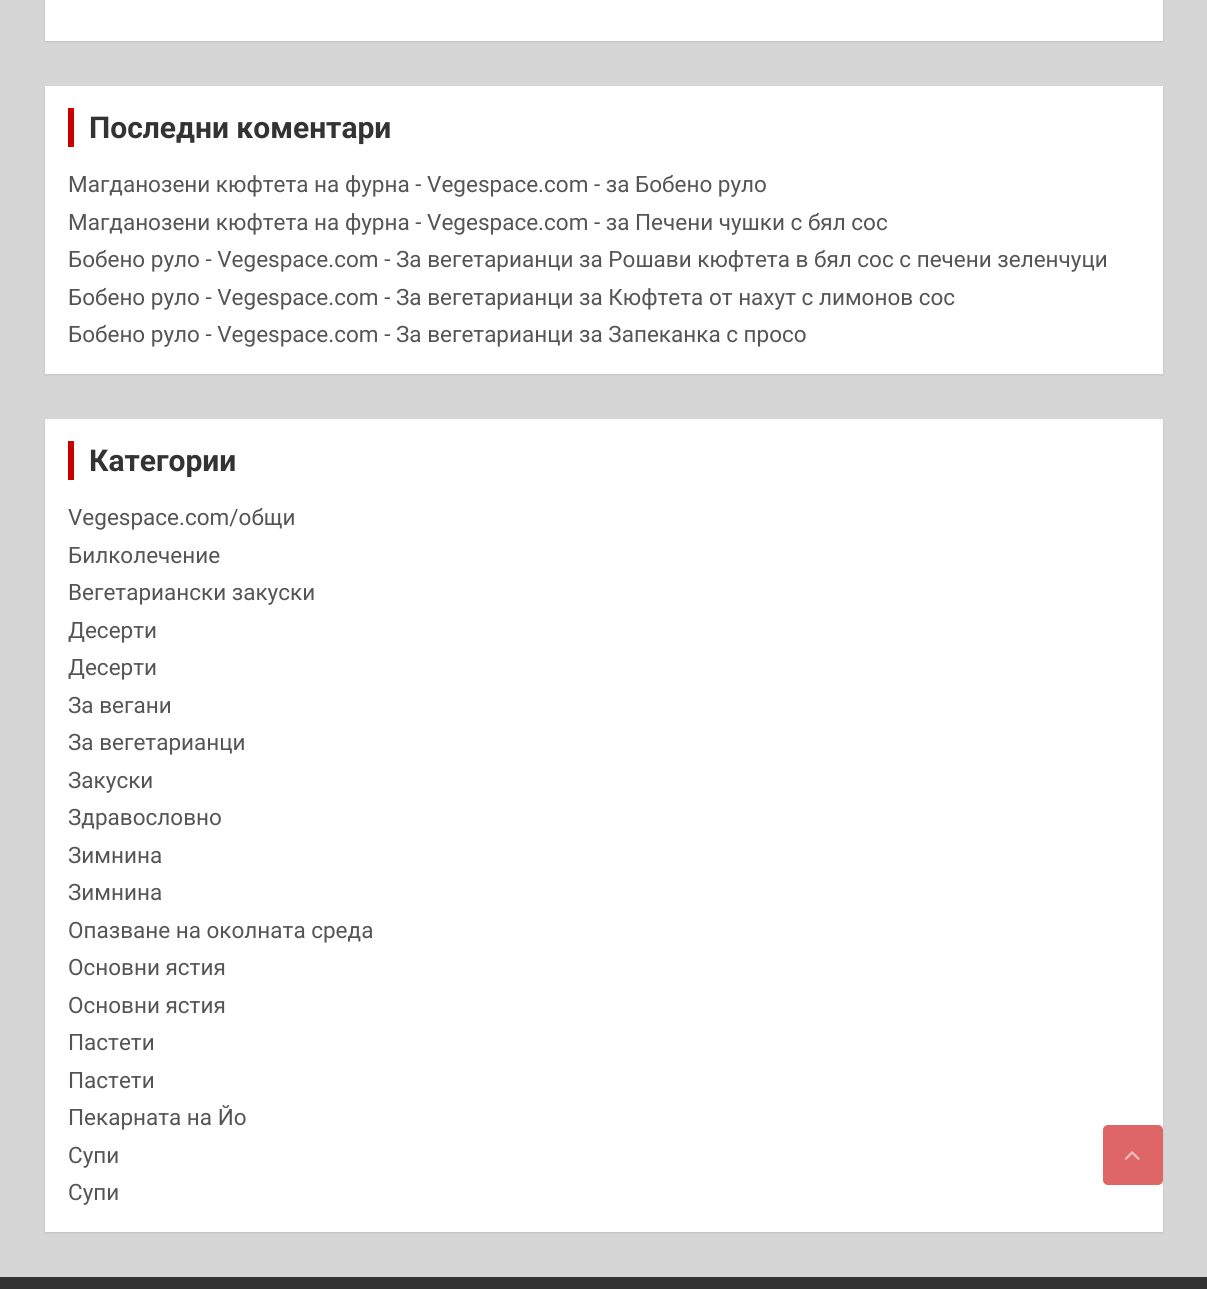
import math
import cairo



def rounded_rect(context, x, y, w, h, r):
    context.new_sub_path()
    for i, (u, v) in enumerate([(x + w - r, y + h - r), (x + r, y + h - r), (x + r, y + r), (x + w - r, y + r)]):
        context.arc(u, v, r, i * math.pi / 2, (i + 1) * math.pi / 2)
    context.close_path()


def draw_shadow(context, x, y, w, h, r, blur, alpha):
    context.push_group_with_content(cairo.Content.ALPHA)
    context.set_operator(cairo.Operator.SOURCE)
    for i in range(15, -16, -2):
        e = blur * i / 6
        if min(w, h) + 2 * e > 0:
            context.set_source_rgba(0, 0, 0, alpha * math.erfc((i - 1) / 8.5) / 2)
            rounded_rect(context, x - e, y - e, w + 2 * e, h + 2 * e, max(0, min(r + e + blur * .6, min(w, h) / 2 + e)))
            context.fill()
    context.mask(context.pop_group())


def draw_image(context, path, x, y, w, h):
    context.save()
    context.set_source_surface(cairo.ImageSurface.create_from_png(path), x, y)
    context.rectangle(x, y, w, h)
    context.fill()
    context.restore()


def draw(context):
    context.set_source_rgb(214 / 255, 214 / 255, 214 / 255)
    context.paint()
    context.set_source_rgb(0, 0, 0)
    draw_shadow(context, 45, -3, 1118, 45, 0, 1, 0.1)
    context.set_source_rgb(1, 1, 1)
    context.rectangle(45, 0, 1118, 41)
    context.fill()
    context.set_source_rgb(0, 0, 0)
    draw_shadow(context, 45, 87, 1118, 288, 0, 1, 0.1)
    context.set_source_rgb(1, 1, 1)
    context.rectangle(45, 86, 1118, 288)
    context.fill()
    context.set_source_rgb(200 / 255, 0, 0)
    context.rectangle(68, 108, 6, 39)
    context.fill()
    context.set_source_rgb(0, 0, 0)
    draw_shadow(context, 45, 420, 1118, 813, 0, 1, 0.1)
    context.set_source_rgb(1, 1, 1)
    context.rectangle(45, 419, 1118, 813)
    context.fill()
    context.set_source_rgb(200 / 255, 0, 0)
    context.rectangle(68, 441, 6, 39)
    context.fill()
    context.set_source_rgb(222 / 255, 102 / 255, 102 / 255)
    rounded_rect(context, 1103, 1125, 60, 60, 5)
    context.fill()
    draw_image(context, "images/1.png", 1124, 1151, 16, 9)
    context.set_source_rgb(51 / 255, 51 / 255, 51 / 255)
    context.rectangle(0, 1277, 1207, 12)
    context.fill()
    context.select_font_face("Roboto", cairo.FontSlant.NORMAL, cairo.FontWeight.BOLD)
    context.set_font_size(30)
    context.move_to(89, 138)
    context.show_text("Последни коментари")
    context.select_font_face("Roboto")
    context.set_font_size(22.5)
    context.set_source_rgb(85 / 255, 85 / 255, 85 / 255)
    context.move_to(68, 192)
    context.show_text("Магданозени кюфтета на фурна - Vegespace.com - за Бобено руло")
    context.move_to(68, 230)
    context.show_text("Магданозени кюфтета на фурна - Vegespace.com - за Печени чушки с бял сос")
    context.move_to(68, 267)
    context.show_text("Бобено руло - Vegespace.com - За вегетарианци за Рошави кюфтета в бял сос с печени зеленчуци")
    context.move_to(68, 305)
    context.show_text("Бобено руло - Vegespace.com - За вегетарианци за Кюфтета от нахут с лимонов сос")
    context.move_to(68, 342)
    context.show_text("Бобено руло - Vegespace.com - За вегетарианци за Запеканка с просо")
    context.select_font_face("Roboto", cairo.FontSlant.NORMAL, cairo.FontWeight.BOLD)
    context.set_font_size(30)
    context.set_source_rgb(51 / 255, 51 / 255, 51 / 255)
    context.move_to(89, 471)
    context.show_text("Категории")
    context.select_font_face("Roboto")
    context.set_font_size(22.5)
    context.set_source_rgb(85 / 255, 85 / 255, 85 / 255)
    context.move_to(68, 525)
    context.show_text("Vegespace.com/общи")
    context.move_to(68, 563)
    context.show_text("Билколечение")
    context.move_to(68, 600)
    context.show_text("Вегетариански закуски")
    context.move_to(68, 638)
    context.show_text("Десерти")
    context.move_to(68, 675)
    context.show_text("Десерти")
    context.move_to(68, 713)
    context.show_text("За вегани")
    context.move_to(68, 750)
    context.show_text("За вегетарианци")
    context.move_to(68, 788)
    context.show_text("Закуски")
    context.move_to(68, 825)
    context.show_text("Здравословно")
    context.move_to(68, 863)
    context.show_text("Зимнина")
    context.move_to(68, 900)
    context.show_text("Зимнина")
    context.move_to(68, 938)
    context.show_text("Опазване на околната среда")
    context.move_to(68, 975)
    context.show_text("Основни ястия")
    context.move_to(68, 1013)
    context.show_text("Основни ястия")
    context.move_to(68, 1050)
    context.show_text("Пастети")
    context.move_to(68, 1088)
    context.show_text("Пастети")
    context.move_to(68, 1125)
    context.show_text("Пекарната на Йо")
    context.move_to(68, 1163)
    context.show_text("Супи")
    context.move_to(68, 1200)
    context.show_text("Супи")


surface = cairo.ImageSurface(cairo.Format.RGB24, 1207, 1289)
context = cairo.Context(surface)
options = cairo.FontOptions()
options.set_hint_metrics(cairo.HintMetrics.OFF)
options.set_hint_style(cairo.HintStyle.NONE)
context.set_font_options(options)
context.set_miter_limit(4)
draw(context)
surface.write_to_png("out.png")
